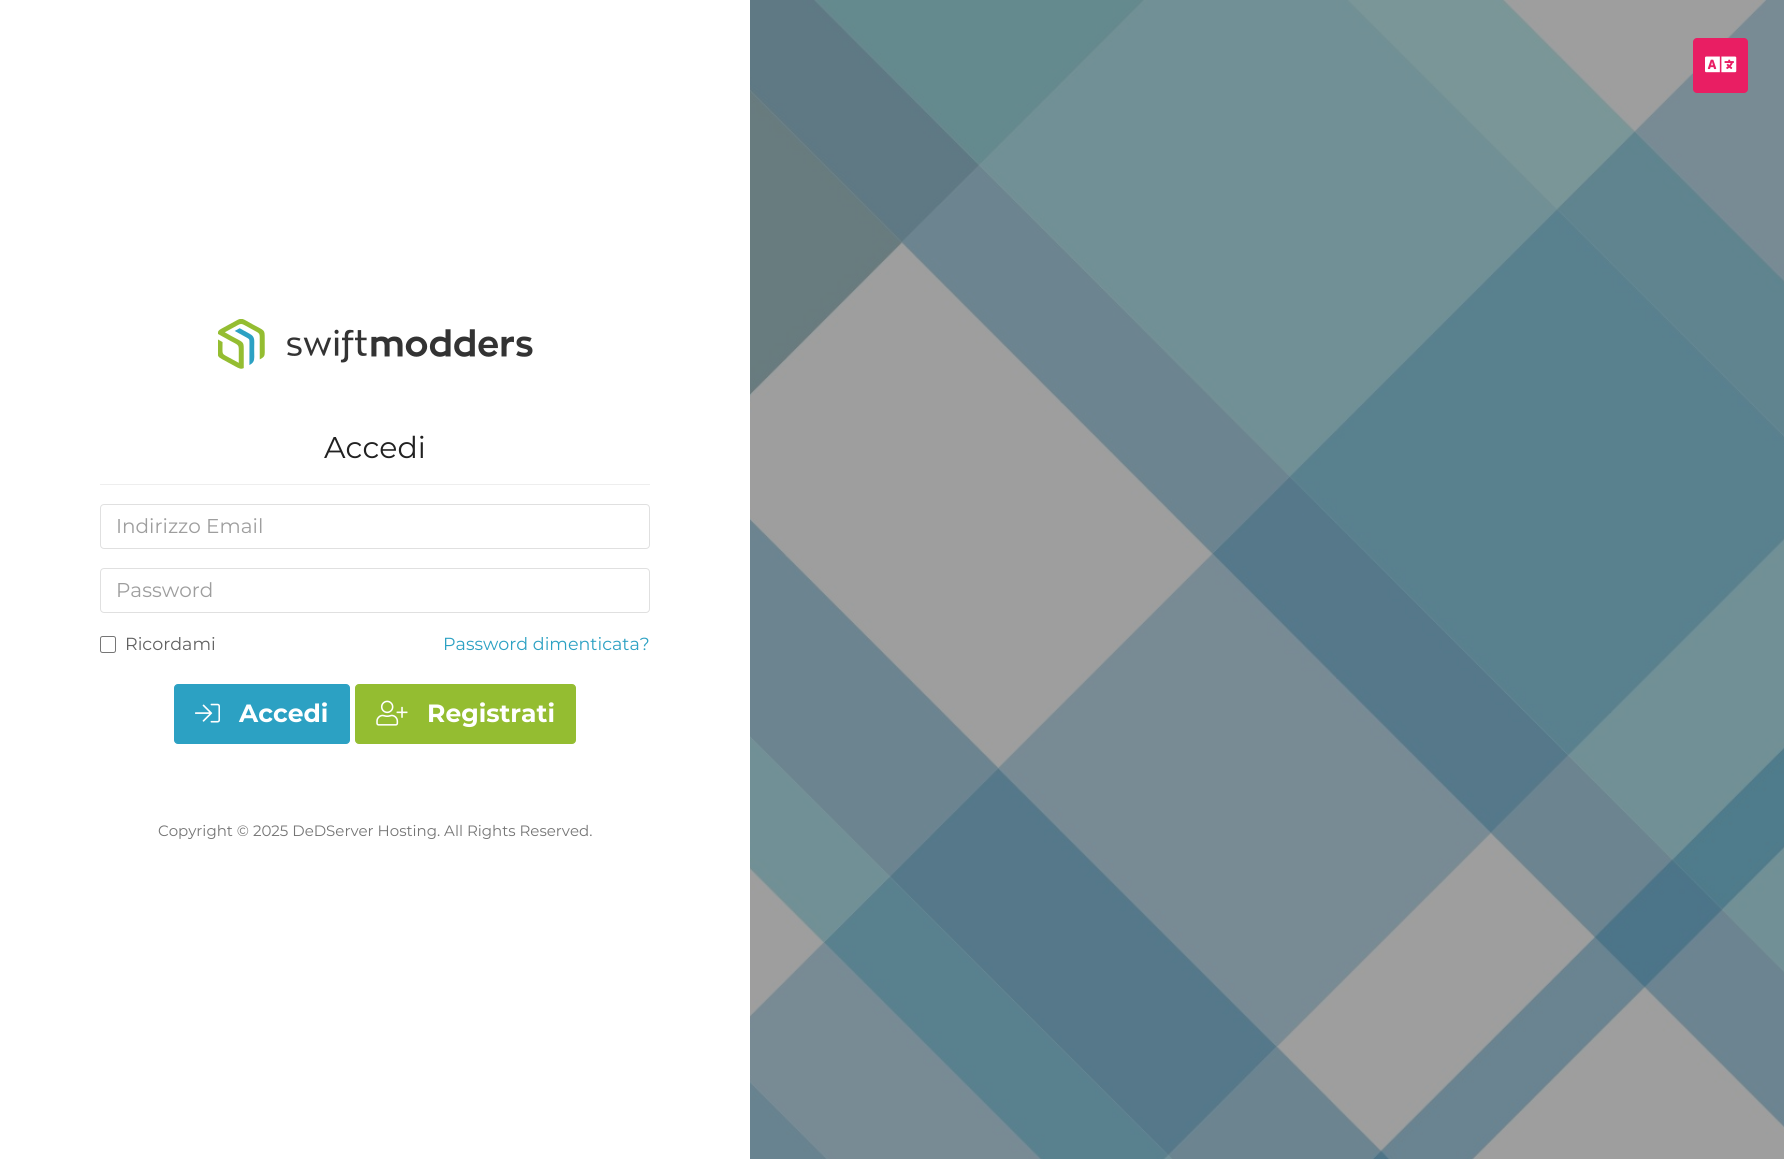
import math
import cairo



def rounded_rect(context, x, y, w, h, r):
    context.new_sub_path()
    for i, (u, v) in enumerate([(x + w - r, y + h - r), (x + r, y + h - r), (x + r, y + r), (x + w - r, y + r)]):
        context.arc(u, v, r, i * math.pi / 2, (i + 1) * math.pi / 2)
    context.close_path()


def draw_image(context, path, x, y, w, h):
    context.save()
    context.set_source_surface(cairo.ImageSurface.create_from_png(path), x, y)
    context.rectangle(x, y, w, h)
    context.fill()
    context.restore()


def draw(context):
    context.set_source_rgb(1, 1, 1)
    context.paint()
    draw_image(context, "images/5.png", 750, 0, 1034, 1159)
    context.set_source_rgb(233 / 255, 30 / 255, 99 / 255)
    rounded_rect(context, 1693, 38, 55, 55, 4)
    context.fill()
    draw_image(context, "images/1.png", 1705, 56, 32, 17)
    draw_image(context, "images/2.png", 218, 319, 315, 50)
    context.set_source_rgb(238 / 255, 238 / 255, 238 / 255)
    context.rectangle(100, 484, 550, 1)
    context.fill()
    rounded_rect(context, 100.5, 504.5, 549, 44, 3.5)
    context.set_source_rgb(224 / 255, 224 / 255, 224 / 255)
    context.set_line_width(1)
    context.stroke()
    rounded_rect(context, 100.5, 568.5, 549, 44, 3.5)
    context.stroke()
    rounded_rect(context, 100.5, 636.5, 15, 16, 2)
    context.set_source_rgb(118 / 255, 118 / 255, 118 / 255)
    context.stroke()
    context.set_source_rgb(44 / 255, 161 / 255, 195 / 255)
    rounded_rect(context, 174.5, 684.5, 175, 59, 3.5)
    context.fill_preserve()
    context.stroke()
    draw_image(context, "images/3.png", 195, 703, 25, 20)
    context.set_source_rgb(148 / 255, 189 / 255, 49 / 255)
    rounded_rect(context, 355.5, 684.5, 220, 59, 3.5)
    context.fill_preserve()
    context.stroke()
    draw_image(context, "images/4.png", 376, 700, 32, 26)
    context.select_font_face("Montserrat")
    context.set_font_size(30)
    context.set_source_rgb(33 / 255, 33 / 255, 33 / 255)
    context.move_to(324, 458)
    context.show_text("Accedi")
    context.set_font_size(20)
    context.set_source_rgb(158 / 255, 158 / 255, 158 / 255)
    context.move_to(116, 533)
    context.show_text("Indirizzo Email")
    context.move_to(116, 597)
    context.show_text("Password")
    context.set_font_size(17.5)
    context.set_source_rgb(97 / 255, 97 / 255, 97 / 255)
    context.move_to(125, 650)
    context.show_text("Ricordami")
    context.set_source_rgb(44 / 255, 161 / 255, 195 / 255)
    context.move_to(443, 650)
    context.show_text("Password dimenticata?")
    context.select_font_face("Montserrat", cairo.FontSlant.NORMAL, cairo.FontWeight.BOLD)
    context.set_font_size(25)
    context.set_source_rgb(1, 1, 1)
    context.move_to(239, 722)
    context.show_text("Accedi")
    context.move_to(427, 722)
    context.show_text("Registrati")
    context.select_font_face("Montserrat")
    context.set_font_size(15)
    context.set_source_rgb(117 / 255, 117 / 255, 117 / 255)
    context.move_to(158, 836)
    context.show_text("Copyright © 2025 DeDServer Hosting. All Rights Reserved.")


surface = cairo.ImageSurface(cairo.Format.RGB24, 1784, 1159)
context = cairo.Context(surface)
options = cairo.FontOptions()
options.set_hint_metrics(cairo.HintMetrics.OFF)
options.set_hint_style(cairo.HintStyle.NONE)
context.set_font_options(options)
context.set_miter_limit(4)
draw(context)
surface.write_to_png("out.png")
